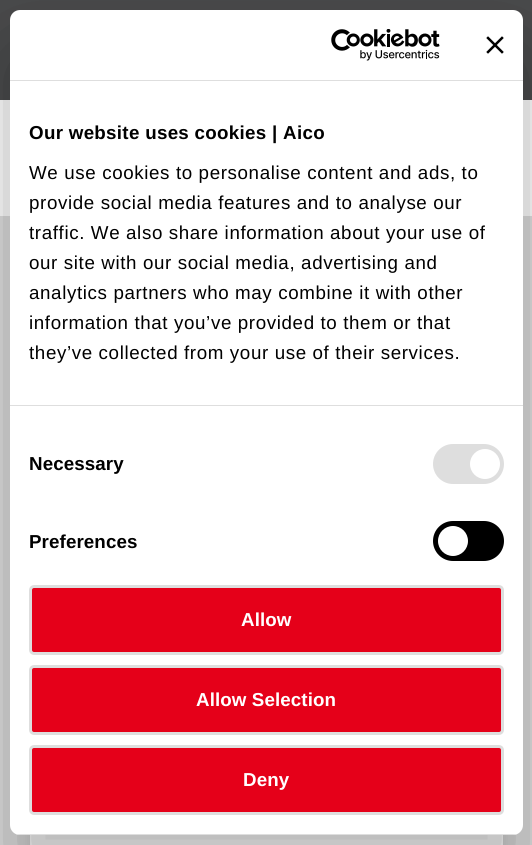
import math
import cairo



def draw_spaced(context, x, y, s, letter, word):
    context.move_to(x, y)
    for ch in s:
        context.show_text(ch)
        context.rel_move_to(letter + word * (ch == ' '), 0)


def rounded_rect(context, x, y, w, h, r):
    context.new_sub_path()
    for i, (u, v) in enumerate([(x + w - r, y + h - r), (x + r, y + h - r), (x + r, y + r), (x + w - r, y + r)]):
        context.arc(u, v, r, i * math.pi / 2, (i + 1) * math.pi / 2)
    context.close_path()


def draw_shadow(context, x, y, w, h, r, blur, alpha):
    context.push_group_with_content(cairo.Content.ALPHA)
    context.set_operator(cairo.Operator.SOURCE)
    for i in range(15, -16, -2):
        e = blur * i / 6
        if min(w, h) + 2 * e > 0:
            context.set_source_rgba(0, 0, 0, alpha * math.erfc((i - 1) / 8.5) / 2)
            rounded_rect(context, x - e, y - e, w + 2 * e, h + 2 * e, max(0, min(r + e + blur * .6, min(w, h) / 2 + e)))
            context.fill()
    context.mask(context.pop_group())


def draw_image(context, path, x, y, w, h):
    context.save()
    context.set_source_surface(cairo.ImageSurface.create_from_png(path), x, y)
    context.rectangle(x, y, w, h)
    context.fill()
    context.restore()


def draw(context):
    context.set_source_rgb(222 / 255, 222 / 255, 222 / 255)
    context.paint()
    context.set_source_rgb(1, 1, 1)
    context.rectangle(0, 100, 532, 116)
    context.fill()
    context.set_source_rgb(74 / 255, 75 / 255, 76 / 255)
    context.rectangle(0, 0, 532, 100)
    context.fill()
    context.set_source_rgb(0, 0, 0)
    draw_shadow(context, 30, 574, 473, 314, 25, 6, 0.1)
    context.set_source_rgb(1, 1, 1)
    context.rectangle(30, 835, 473, 10)
    context.fill()
    context.set_source_rgb(0, 0, 0)
    draw_shadow(context, 10, 50, 513, 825, 10, 42.5, 0.3)
    context.set_source_rgb(1, 1, 1)
    rounded_rect(context, 10, 10, 513, 825, 10)
    context.fill()
    context.set_source_rgb(222 / 255, 222 / 255, 222 / 255)
    context.rectangle(10, 80, 513, 1)
    context.fill()
    draw_image(context, "images/1.png", 331, 29, 109, 32)
    draw_image(context, "images/2.png", 486, 36, 18, 18)
    context.rectangle(10, 405, 513, 1)
    context.fill()
    rounded_rect(context, 433, 444, 71, 40, 20)
    context.fill()
    context.set_source_rgb(1, 1, 1)
    context.arc(485, 464, 15, 0, 2 * math.pi)
    context.fill()
    context.set_source_rgb(0, 0, 0)
    rounded_rect(context, 433, 521, 71, 40, 20)
    context.fill()
    context.set_source_rgb(1, 1, 1)
    context.arc(453, 541, 15, 0, 2 * math.pi)
    context.fill()
    context.save()
    rounded_rect(context, 10, 10, 513, 825, 10)
    context.clip()
    context.set_source_rgb(222 / 255, 222 / 255, 222 / 255)
    context.rectangle(10, 834, 513, 1)
    context.fill()
    context.restore()
    context.set_source_rgb(229 / 255, 0, 25 / 255)
    rounded_rect(context, 30.5, 586.5, 472, 67, 3.5)
    context.fill_preserve()
    context.set_source_rgb(222 / 255, 222 / 255, 222 / 255)
    context.set_line_width(3)
    context.stroke()
    context.set_source_rgb(229 / 255, 0, 25 / 255)
    rounded_rect(context, 30.5, 666.5, 472, 67, 3.5)
    context.fill_preserve()
    context.set_source_rgb(222 / 255, 222 / 255, 222 / 255)
    context.stroke()
    context.set_source_rgb(229 / 255, 0, 25 / 255)
    rounded_rect(context, 30.5, 746.5, 472, 67, 3.5)
    context.fill_preserve()
    context.set_source_rgb(222 / 255, 222 / 255, 222 / 255)
    context.stroke()
    context.select_font_face("Liberation Sans", cairo.FontSlant.NORMAL, cairo.FontWeight.BOLD)
    context.set_font_size(18.75)
    context.set_source_rgb(0, 0, 0)
    draw_spaced(context, 29, 139, "Our website uses cookies | Aico", 0.3, 0)
    context.select_font_face("Liberation Sans")
    draw_spaced(context, 29, 179, "We use cookies to personalise content and ads, to", 0.62, 0)
    draw_spaced(context, 29, 209, "provide social media features and to analyse our", 0.62, 0)
    draw_spaced(context, 29, 239, "traffic. We also share information about your use of", 0.62, 0)
    draw_spaced(context, 29, 269, "our site with our social media, advertising and", 0.62, 0)
    draw_spaced(context, 29, 299, "analytics partners who may combine it with other", 0.62, 0)
    draw_spaced(context, 29, 329, "information that you’ve provided to them or that", 0.62, 0)
    draw_spaced(context, 29, 359, "they’ve collected from your use of their services.", 0.62, 0)
    context.select_font_face("Liberation Sans", cairo.FontSlant.NORMAL, cairo.FontWeight.BOLD)
    draw_spaced(context, 29, 470, "Necessary", 0.1, 0)
    draw_spaced(context, 29, 548, "Preferences", 0.1, 0)
    context.set_source_rgb(1, 1, 1)
    draw_spaced(context, 241, 626, "Allow", 0.1, 0)
    draw_spaced(context, 196, 706, "Allow Selection", 0.1, 0)
    draw_spaced(context, 243, 786, "Deny", 0.1, 0)


surface = cairo.ImageSurface(cairo.Format.RGB24, 532, 845)
context = cairo.Context(surface)
options = cairo.FontOptions()
options.set_hint_metrics(cairo.HintMetrics.OFF)
options.set_hint_style(cairo.HintStyle.NONE)
context.set_font_options(options)
context.set_miter_limit(4)
draw(context)
surface.write_to_png("out.png")
